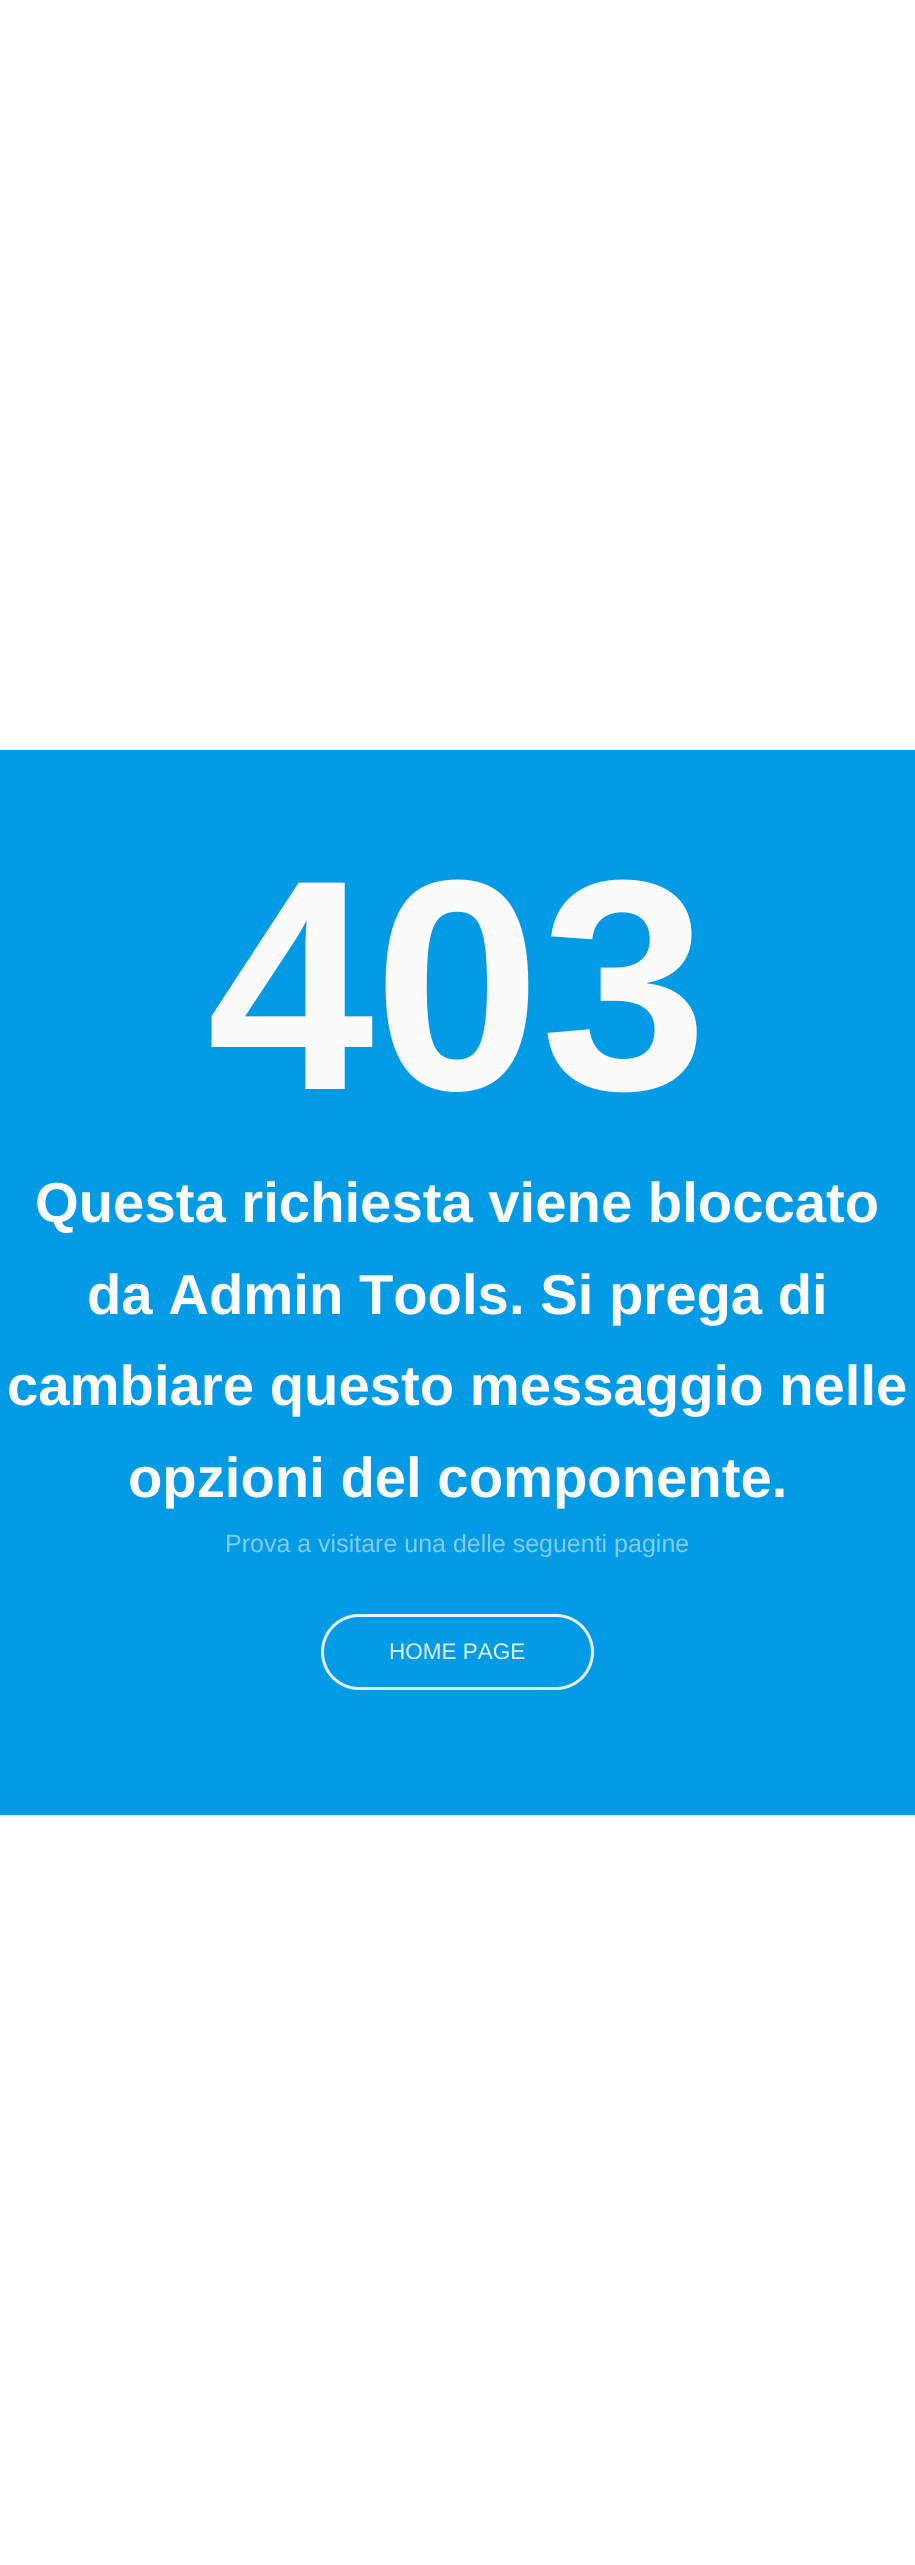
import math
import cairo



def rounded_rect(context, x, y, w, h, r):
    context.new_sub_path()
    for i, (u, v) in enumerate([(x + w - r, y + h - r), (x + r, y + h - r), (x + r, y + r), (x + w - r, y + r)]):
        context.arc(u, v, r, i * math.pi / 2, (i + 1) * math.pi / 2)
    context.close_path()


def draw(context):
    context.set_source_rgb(1, 1, 1)
    context.paint()
    context.set_source_rgb(3 / 255, 155 / 255, 229 / 255)
    context.rectangle(0, 750, 915, 1065)
    context.fill()
    rounded_rect(context, 322.5, 1615.5, 270, 73, 36.5)
    context.set_source_rgb(230 / 255, 245 / 255, 252 / 255)
    context.set_line_width(3)
    context.stroke()
    context.select_font_face("Liberation Sans", cairo.FontSlant.NORMAL, cairo.FontWeight.BOLD)
    context.set_font_size(300)
    context.set_source_rgb(251 / 255, 251 / 255, 251 / 255)
    context.move_to(207, 1089)
    context.show_text("403")
    context.set_font_size(56.25)
    context.move_to(35, 1222)
    context.show_text("Questa richiesta viene bloccato")
    context.move_to(87, 1314)
    context.show_text("da Admin Tools. Si prega di")
    context.move_to(7, 1405)
    context.show_text("cambiare questo messaggio nelle")
    context.move_to(128, 1497)
    context.show_text("opzioni del componente.")
    context.select_font_face("Liberation Sans")
    context.set_font_size(25)
    context.set_source_rgb(129 / 255, 205 / 255, 242 / 255)
    context.move_to(225, 1552)
    context.show_text("Prova a visitare una delle seguenti pagine")
    context.set_font_size(22.5)
    context.set_source_rgb(230 / 255, 245 / 255, 252 / 255)
    context.move_to(389, 1659)
    context.show_text("HOME PAGE")


surface = cairo.ImageSurface(cairo.Format.RGB24, 915, 2565)
context = cairo.Context(surface)
options = cairo.FontOptions()
options.set_hint_metrics(cairo.HintMetrics.OFF)
options.set_hint_style(cairo.HintStyle.NONE)
context.set_font_options(options)
context.set_miter_limit(4)
draw(context)
surface.write_to_png("out.png")
